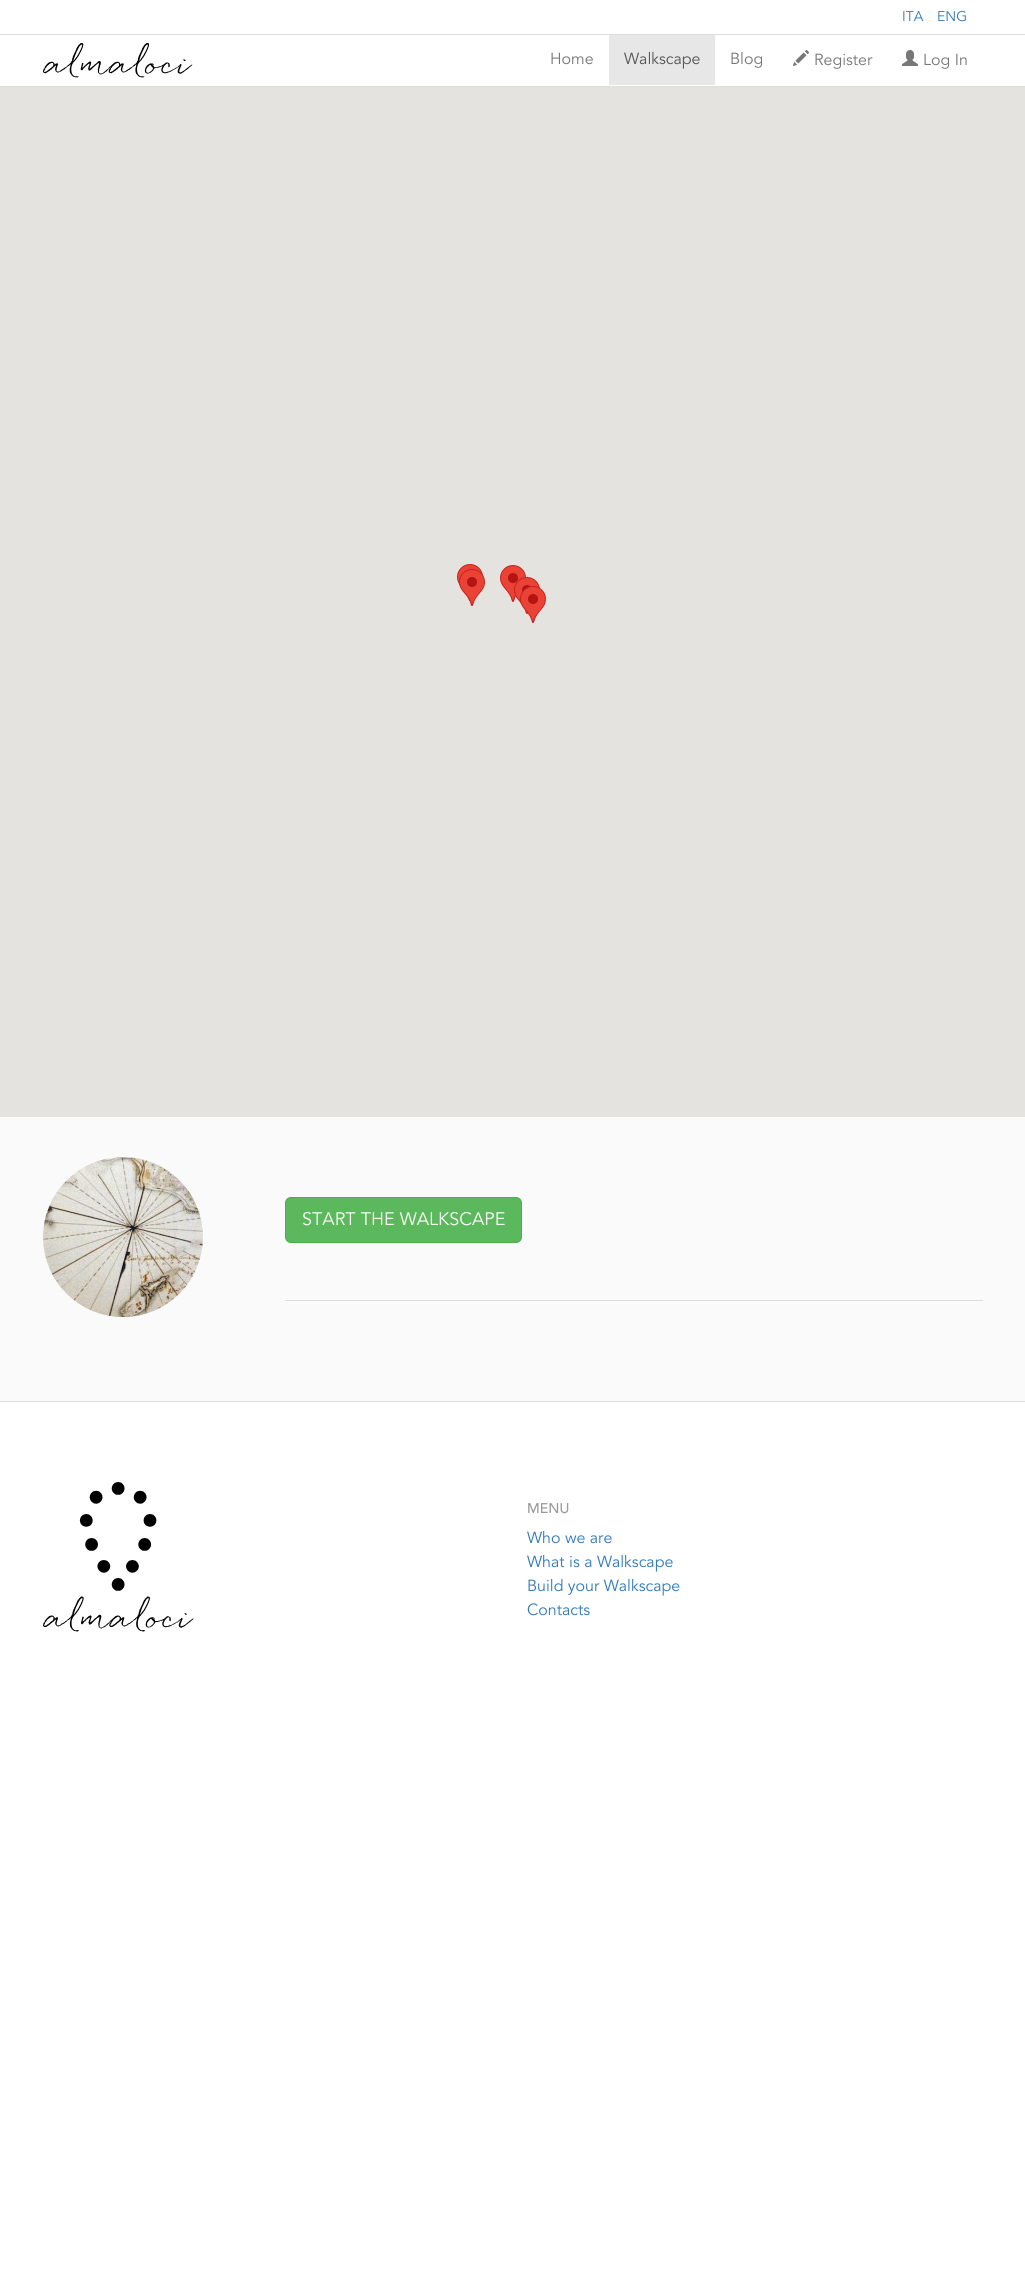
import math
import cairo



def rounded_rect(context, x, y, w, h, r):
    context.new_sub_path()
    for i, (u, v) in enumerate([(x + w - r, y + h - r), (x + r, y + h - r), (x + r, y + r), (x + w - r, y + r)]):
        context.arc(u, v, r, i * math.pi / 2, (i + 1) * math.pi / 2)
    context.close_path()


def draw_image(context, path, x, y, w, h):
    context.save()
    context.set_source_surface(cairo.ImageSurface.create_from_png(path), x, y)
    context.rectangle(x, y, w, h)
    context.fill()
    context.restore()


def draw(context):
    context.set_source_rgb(1, 1, 1)
    context.paint()
    context.set_source_rgb(221 / 255, 221 / 255, 221 / 255)
    context.rectangle(0, 34, 1025, 1)
    context.fill()
    context.rectangle(0, 86, 1025, 1)
    context.fill()
    draw_image(context, "images/1.png", 43, 43, 150, 35)
    context.set_source_rgb(231 / 255, 231 / 255, 231 / 255)
    context.rectangle(609, 35, 106, 50)
    context.fill()
    draw_image(context, "images/2.png", 792, 49, 18, 18)
    draw_image(context, "images/3.png", 902, 50, 16, 16)
    context.set_source_rgb(229 / 255, 227 / 255, 223 / 255)
    context.rectangle(0, 87, 1025, 1030)
    context.fill()
    draw_image(context, "images/4.png", 457, 564, 26, 37)
    draw_image(context, "images/4.png", 500, 565, 26, 37)
    draw_image(context, "images/5.png", 459, 569, 26, 37)
    draw_image(context, "images/6.png", 514, 577, 26, 37)
    draw_image(context, "images/7.png", 520, 586, 26, 37)
    context.set_source_rgb(250 / 255, 250 / 255, 250 / 255)
    context.rectangle(0, 1117, 1025, 284)
    context.fill()
    draw_image(context, "images/8.png", 43, 1157, 160, 160)
    context.set_source_rgb(221 / 255, 221 / 255, 221 / 255)
    context.rectangle(285, 1300, 698, 1)
    context.fill()
    context.set_source_rgb(92 / 255, 184 / 255, 92 / 255)
    rounded_rect(context, 285.5, 1197.5, 236, 45, 5.5)
    context.fill_preserve()
    context.set_source_rgb(76 / 255, 174 / 255, 76 / 255)
    context.set_line_width(1)
    context.stroke()
    context.set_source_rgb(221 / 255, 221 / 255, 221 / 255)
    context.rectangle(0, 1401, 1025, 1)
    context.fill()
    draw_image(context, "images/9.png", 43, 1482, 151, 150)
    context.select_font_face("Avenir")
    context.set_font_size(14)
    context.set_source_rgb(51 / 255, 122 / 255, 183 / 255)
    context.move_to(902, 21)
    context.show_text("ITA")
    context.move_to(937, 21)
    context.show_text("ENG")
    context.set_font_size(16)
    context.set_source_rgb(119 / 255, 119 / 255, 119 / 255)
    context.move_to(550, 64)
    context.show_text("Home")
    context.set_source_rgb(85 / 255, 85 / 255, 85 / 255)
    context.move_to(624, 64)
    context.show_text("Walkscape")
    context.set_source_rgb(119 / 255, 119 / 255, 119 / 255)
    context.move_to(730, 64)
    context.show_text("Blog")
    context.move_to(814, 65)
    context.show_text("Register")
    context.move_to(923, 65)
    context.show_text("Log In")
    context.set_font_size(18)
    context.set_source_rgb(1, 1, 1)
    context.move_to(302, 1225)
    context.show_text("START THE WALKSCAPE")
    context.select_font_face("Avenir Medium")
    context.set_font_size(14)
    context.set_source_rgb(153 / 255, 153 / 255, 153 / 255)
    context.move_to(527, 1513)
    context.show_text("MENU")
    context.select_font_face("Avenir")
    context.set_font_size(16)
    context.set_source_rgb(51 / 255, 122 / 255, 183 / 255)
    context.move_to(527, 1543)
    context.show_text("Who we are")
    context.move_to(527, 1567)
    context.show_text("What is a Walkscape")
    context.move_to(527, 1591)
    context.show_text("Build your Walkscape")
    context.move_to(527, 1615)
    context.show_text("Contacts")


surface = cairo.ImageSurface(cairo.Format.RGB24, 1025, 2289)
context = cairo.Context(surface)
options = cairo.FontOptions()
options.set_hint_metrics(cairo.HintMetrics.OFF)
options.set_hint_style(cairo.HintStyle.NONE)
context.set_font_options(options)
context.set_miter_limit(4)
draw(context)
surface.write_to_png("out.png")
